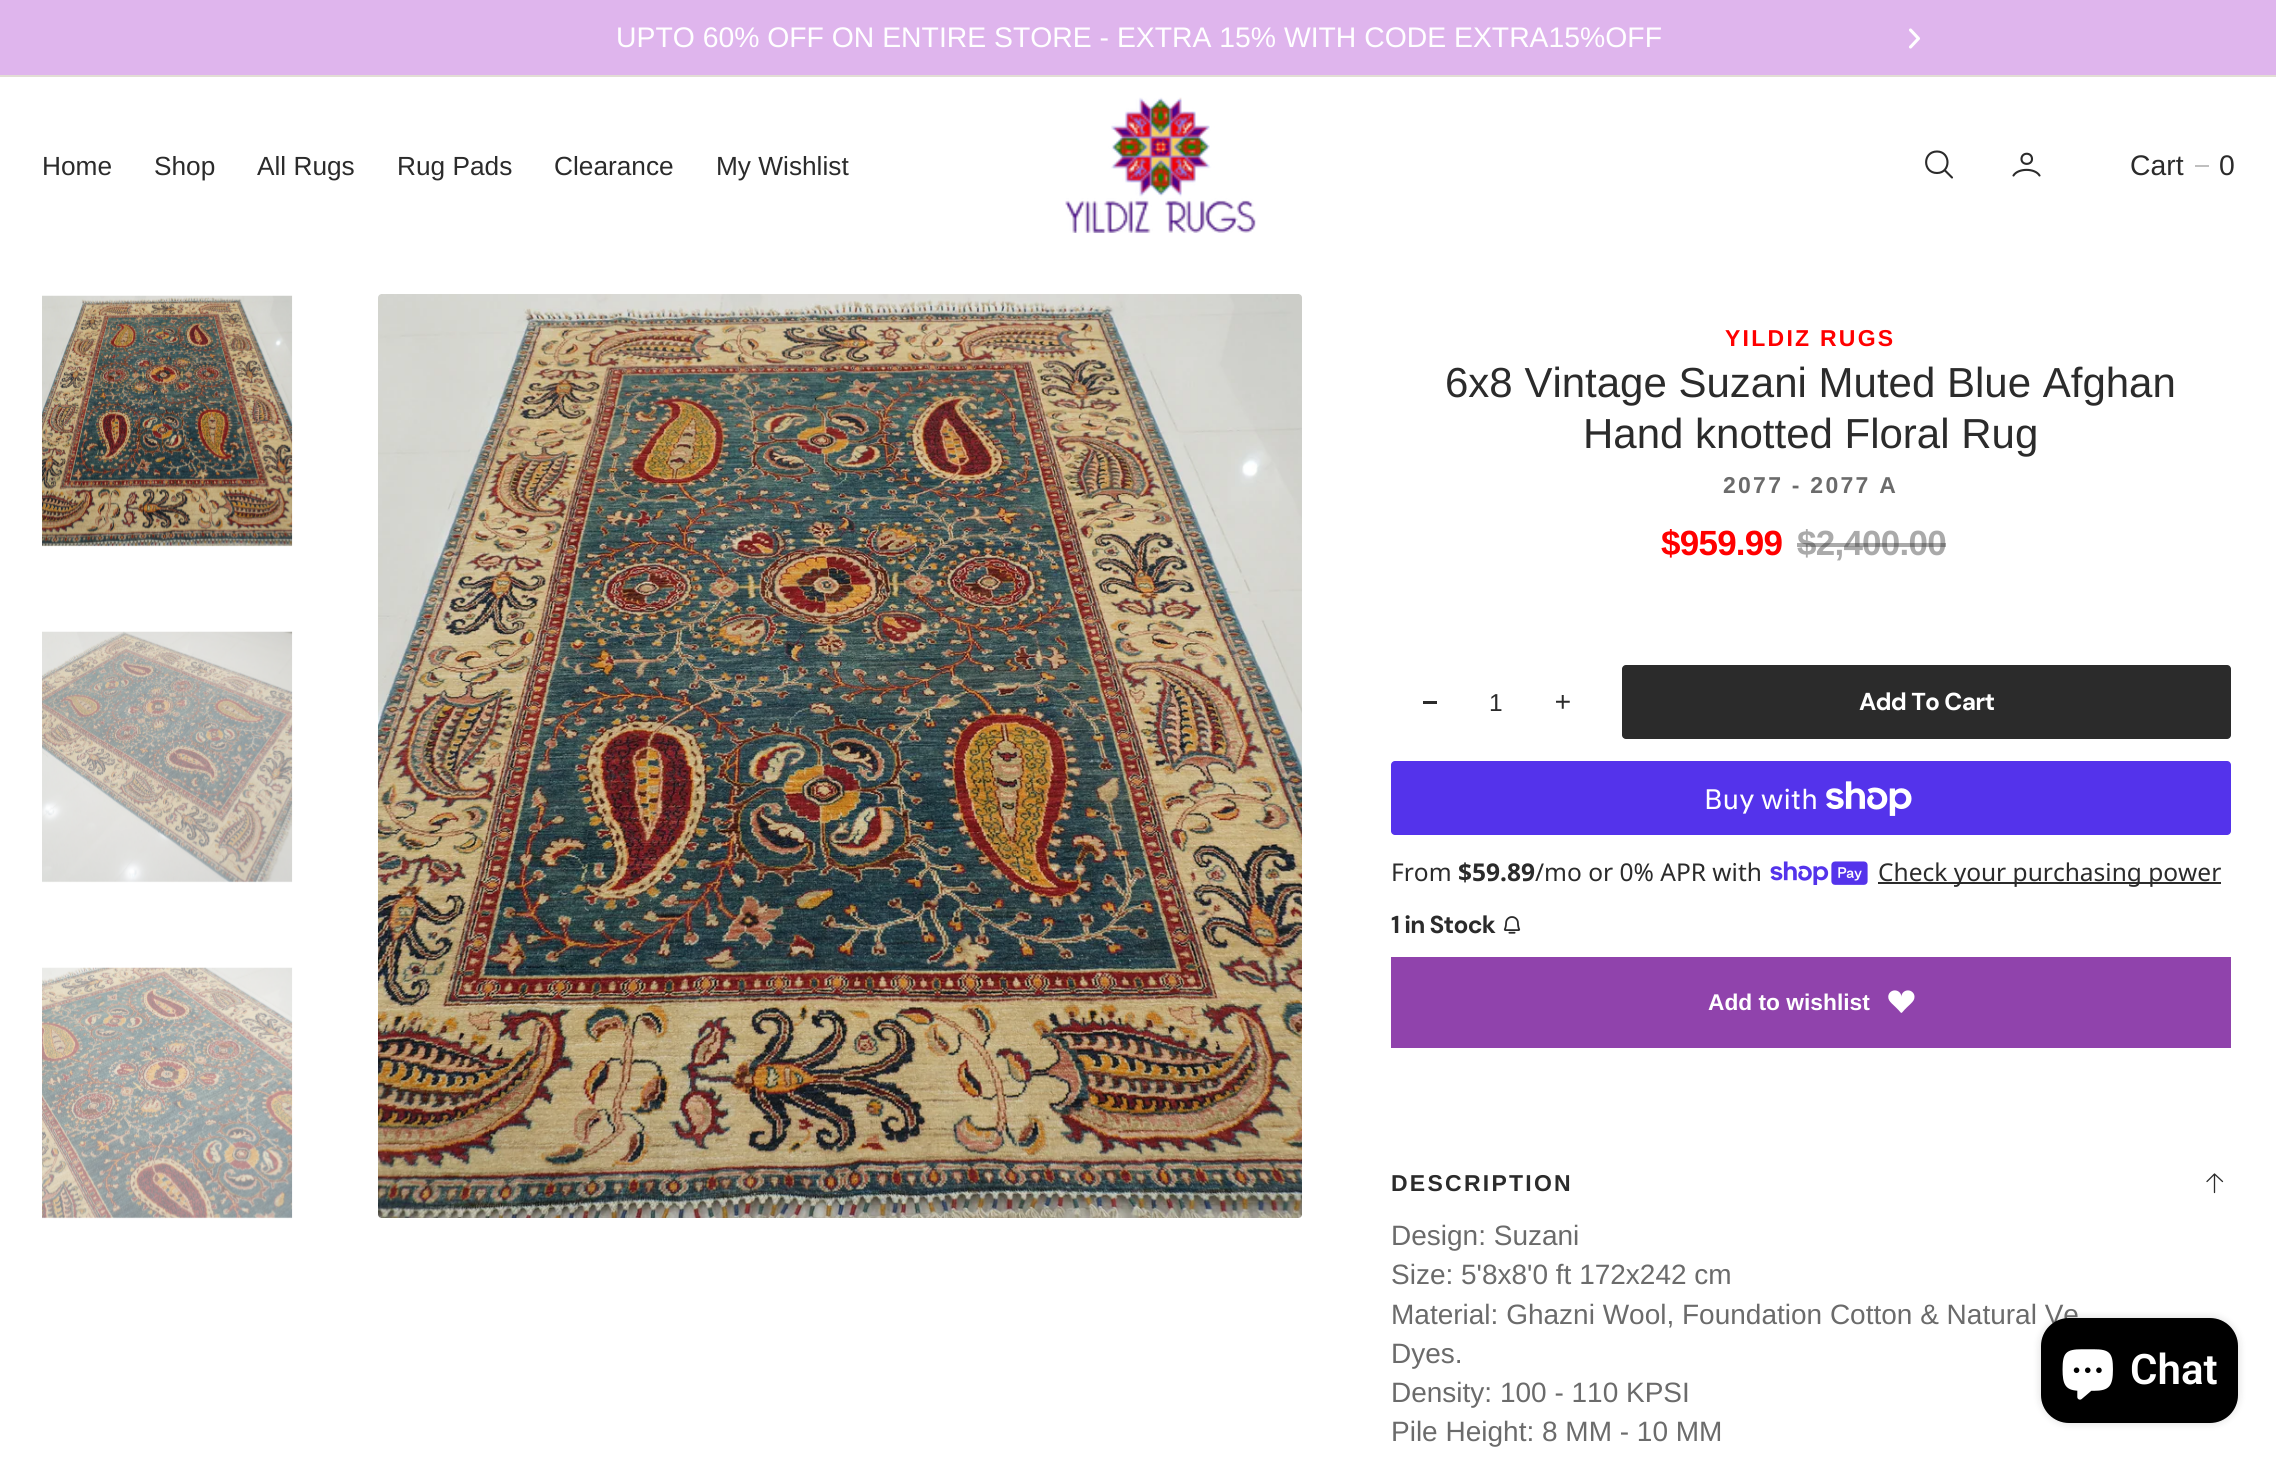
import math
import cairo



def draw_spaced(context, x, y, s, letter, word):
    context.move_to(x, y)
    for ch in s:
        context.show_text(ch)
        context.rel_move_to(letter + word * (ch == ' '), 0)


def rounded_rect(context, x, y, w, h, r):
    context.new_sub_path()
    for i, (u, v) in enumerate([(x + w - r, y + h - r), (x + r, y + h - r), (x + r, y + r), (x + w - r, y + r)]):
        context.arc(u, v, r, i * math.pi / 2, (i + 1) * math.pi / 2)
    context.close_path()


def draw_shadow(context, x, y, w, h, r, blur, alpha):
    context.push_group_with_content(cairo.Content.ALPHA)
    context.set_operator(cairo.Operator.SOURCE)
    for i in range(15, -16, -2):
        e = blur * i / 6
        if min(w, h) + 2 * e > 0:
            context.set_source_rgba(0, 0, 0, alpha * math.erfc((i - 1) / 8.5) / 2)
            rounded_rect(context, x - e, y - e, w + 2 * e, h + 2 * e, max(0, min(r + e + blur * .6, min(w, h) / 2 + e)))
            context.fill()
    context.mask(context.pop_group())


def draw_image(context, path, x, y, w, h):
    context.save()
    context.set_source_surface(cairo.ImageSurface.create_from_png(path), x, y)
    context.rectangle(x, y, w, h)
    context.fill()
    context.restore()


def draw(context):
    context.set_source_rgb(1, 1, 1)
    context.paint()
    context.set_source_rgb(223 / 255, 181 / 255, 237 / 255)
    context.rectangle(0, 0, 2276, 75)
    context.fill()
    context.set_source_rgb(226 / 255, 221 / 255, 213 / 255)
    context.rectangle(0, 75, 2276, 2)
    context.fill()
    context.new_path()
    context.move_to(1910.5, 30)
    context.line_to(1918.5, 38.5)
    context.line_to(1910.5, 47)
    context.set_source_rgb(1, 1, 1)
    context.set_line_width(3.1)
    context.set_line_cap(cairo.LineCap.ROUND)
    context.set_line_join(cairo.LineJoin.ROUND)
    context.stroke()
    draw_image(context, "images/1.png", 1065, 97, 191, 136)
    context.new_path()
    context.move_to(1937, 173)
    context.curve_to(1951, 173, 1951, 151.5, 1937, 151.5)
    context.curve_to(1922.5, 151.5, 1922.5, 173, 1937, 173)
    context.close_path()
    context.move_to(1944.5, 170)
    context.line_to(1952, 177.5)
    context.set_source_rgb(43 / 255, 43 / 255, 43 / 255)
    context.set_line_width(2.1)
    context.stroke()
    context.new_path()
    context.move_to(2013.5, 175.5)
    context.curve_to(2018, 168, 2035, 168, 2039.5, 175.5)
    context.move_to(2032, 159)
    context.curve_to(2032, 165.5, 2021.5, 165.5, 2021.5, 159)
    context.curve_to(2021.5, 152, 2032, 152, 2032, 159)
    context.close_path()
    context.set_line_join(cairo.LineJoin.MITER)
    context.stroke()
    context.set_source_rgb(191 / 255, 191 / 255, 191 / 255)
    context.rectangle(2195, 165, 14, 2)
    context.fill()
    draw_image(context, "images/2.png", 42, 295, 251, 252)
    draw_image(context, "images/3.png", 42, 631, 251, 252)
    draw_image(context, "images/4.png", 42, 967, 251, 252)
    draw_image(context, "images/5.png", 378, 294, 924, 924)
    context.set_source_rgb(43 / 255, 43 / 255, 43 / 255)
    context.rectangle(1423, 701, 14, 3)
    context.fill()
    draw_image(context, "images/6.png", 1556, 695, 14, 14)
    rounded_rect(context, 1622, 665, 609, 74, 4)
    context.fill()
    context.set_source_rgb(84 / 255, 51 / 255, 235 / 255)
    rounded_rect(context, 1391, 761, 840, 74, 4)
    context.fill()
    draw_image(context, "images/7.png", 1826, 781, 86, 35)
    draw_image(context, "images/8.png", 1770, 861, 98, 24)
    context.set_source_rgb(43 / 255, 43 / 255, 43 / 255)
    context.rectangle(1878, 882, 343, 2)
    context.fill()
    draw_image(context, "images/9.png", 1503, 916, 18, 18)
    context.set_source_rgb(144 / 255, 67 / 255, 172 / 255)
    context.rectangle(1391, 957, 840, 91)
    context.fill()
    draw_image(context, "images/10.png", 1888, 990, 27, 23)
    context.new_path()
    context.move_to(2207, 1181.5)
    context.line_to(2214.5, 1174)
    context.move_to(2214.5, 1174)
    context.line_to(2222.5, 1181.5)
    context.move_to(2214.5, 1174)
    context.line_to(2214.5, 1192.5)
    context.set_source_rgb(43 / 255, 43 / 255, 43 / 255)
    context.set_line_width(1.3)
    context.set_line_join(cairo.LineJoin.ROUND)
    context.stroke()
    context.set_source_rgb(0, 0, 0)
    draw_shadow(context, 2041, 1318, 197, 105, 28, 4.5, 0.15)
    context.select_font_face("Liberation Sans")
    context.set_font_size(28.35)
    context.set_source_rgb(1, 1, 1)
    context.move_to(616, 47)
    context.show_text("UPTO 60% OFF ON ENTIRE STORE - EXTRA 15% WITH CODE EXTRA15%OFF")
    context.set_font_size(26.25)
    context.set_source_rgb(43 / 255, 43 / 255, 43 / 255)
    context.move_to(42, 175)
    context.show_text("Home")
    context.move_to(154, 175)
    context.show_text("Shop")
    context.move_to(257, 175)
    context.show_text("All Rugs")
    context.move_to(397, 175)
    context.show_text("Rug Pads")
    context.move_to(554, 175)
    context.show_text("Clearance")
    context.move_to(716, 175)
    context.show_text("My Wishlist")
    context.set_font_size(28.35)
    context.move_to(2130, 175)
    context.show_text("Cart")
    context.move_to(2219, 175)
    context.show_text("0")
    context.select_font_face("Liberation Sans", cairo.FontSlant.NORMAL, cairo.FontWeight.BOLD)
    context.set_font_size(23)
    context.set_source_rgb(1, 0, 0)
    draw_spaced(context, 1725, 346, "YILDIZ RUGS", 2.25, 0)
    context.select_font_face("Liberation Sans")
    context.set_font_size(42)
    context.set_source_rgb(43 / 255, 43 / 255, 43 / 255)
    context.move_to(1445, 397)
    context.show_text("6x8 Vintage Suzani Muted Blue Afghan")
    context.move_to(1583, 448)
    context.show_text("Hand knotted Floral Rug")
    context.select_font_face("Liberation Sans", cairo.FontSlant.NORMAL, cairo.FontWeight.BOLD)
    context.set_font_size(23)
    context.set_source_rgb(107 / 255, 107 / 255, 107 / 255)
    draw_spaced(context, 1723, 493, "2077 - 2077 A", 2.25, 0)
    context.set_font_size(35)
    context.set_source_rgb(1, 0, 0)
    draw_spaced(context, 1661, 555, "$959.99", -0.75, 0)
    context.set_source_rgb(170 / 255, 170 / 255, 170 / 255)
    draw_spaced(context, 1797, 555, "$2,400.00", -0.75, 0)
    context.set_source_rgba(43 / 255, 43 / 255, 43 / 255, 0.4)
    context.rectangle(1797, 543, 149, 4)
    context.fill()
    context.select_font_face("Liberation Sans")
    context.set_font_size(24.5)
    context.set_source_rgb(43 / 255, 43 / 255, 43 / 255)
    context.move_to(1489, 711)
    context.show_text("1")
    context.select_font_face("DM Sans", cairo.FontSlant.NORMAL, cairo.FontWeight.BOLD)
    context.set_source_rgb(1, 1, 1)
    draw_spaced(context, 1859, 710, "Add To Cart", -0.75, 0)
    context.select_font_face("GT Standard")
    context.set_font_size(28)
    context.move_to(1704, 809)
    context.show_text("Buy with")
    context.select_font_face("Noto Sans")
    context.set_font_size(24.5)
    context.set_source_rgb(43 / 255, 43 / 255, 43 / 255)
    context.move_to(1391, 881)
    context.show_text("From")
    context.select_font_face("Noto Sans", cairo.FontSlant.NORMAL, cairo.FontWeight.BOLD)
    context.move_to(1458, 881)
    context.show_text("$59.89")
    context.select_font_face("Noto Sans")
    context.move_to(1535, 881)
    context.show_text("/mo or 0% APR with")
    context.move_to(1878, 881)
    context.show_text("Check your purchasing power")
    context.select_font_face("DM Sans", cairo.FontSlant.NORMAL, cairo.FontWeight.BOLD)
    draw_spaced(context, 1391, 933, "1 in Stock", -0.75, 0)
    context.select_font_face("Liberation Sans", cairo.FontSlant.NORMAL, cairo.FontWeight.BOLD)
    context.set_font_size(22.75)
    context.set_source_rgb(1, 1, 1)
    context.move_to(1708, 1010)
    context.show_text("Add to wishlist")
    context.set_font_size(23)
    context.set_source_rgb(43 / 255, 43 / 255, 43 / 255)
    draw_spaced(context, 1391, 1191, "DESCRIPTION", 2.25, 0)
    context.select_font_face("Liberation Sans")
    context.set_font_size(28)
    context.set_source_rgb(107 / 255, 107 / 255, 107 / 255)
    context.move_to(1391, 1245)
    context.show_text("Design: Suzani")
    context.move_to(1391, 1284)
    context.show_text("Size: 5'8x8'0 ft 172x242 cm")
    context.move_to(1391, 1324)
    context.show_text("Material: Ghazni Wool, Foundation Cotton & Natural Ve")
    context.move_to(1391, 1363)
    context.show_text("Dyes.")
    context.move_to(1391, 1402)
    context.show_text("Density: 100 - 110 KPSI")
    context.move_to(1391, 1441)
    context.show_text("Pile Height: 8 MM - 10 MM")
    context.set_source_rgb(0, 0, 0)
    rounded_rect(context, 2041, 1318, 197, 105, 28)
    context.fill()
    draw_image(context, "images/11.png", 2062, 1349, 51, 51)
    context.select_font_face("Roboto SemiBold")
    context.set_font_size(42)
    context.set_source_rgb(1, 1, 1)
    context.move_to(2130, 1384)
    context.show_text("Chat")


surface = cairo.ImageSurface(cairo.Format.RGB24, 2276, 1458)
context = cairo.Context(surface)
options = cairo.FontOptions()
options.set_hint_metrics(cairo.HintMetrics.OFF)
options.set_hint_style(cairo.HintStyle.NONE)
context.set_font_options(options)
context.set_miter_limit(4)
draw(context)
surface.write_to_png("out.png")
